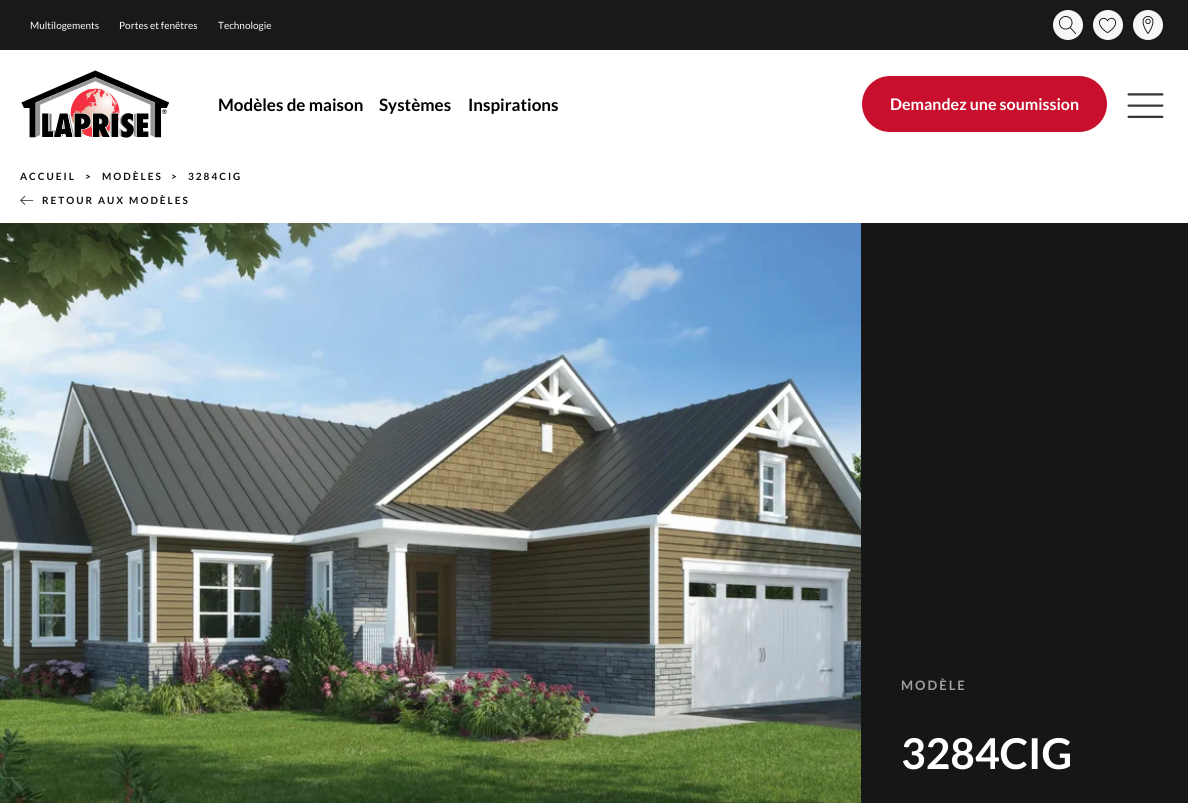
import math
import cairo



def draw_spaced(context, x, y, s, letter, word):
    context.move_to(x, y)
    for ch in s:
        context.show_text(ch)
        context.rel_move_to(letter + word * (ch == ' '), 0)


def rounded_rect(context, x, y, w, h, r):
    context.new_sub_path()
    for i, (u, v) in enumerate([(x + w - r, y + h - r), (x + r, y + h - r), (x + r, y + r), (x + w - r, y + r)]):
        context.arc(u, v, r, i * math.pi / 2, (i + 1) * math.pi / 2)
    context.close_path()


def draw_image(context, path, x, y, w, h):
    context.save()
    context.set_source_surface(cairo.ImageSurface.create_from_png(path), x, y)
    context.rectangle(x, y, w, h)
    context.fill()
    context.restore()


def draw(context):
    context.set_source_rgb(1, 1, 1)
    context.paint()
    context.set_source_rgb(25 / 255, 25 / 255, 25 / 255)
    context.rectangle(0, 0, 1188, 50)
    context.fill()
    context.set_source_rgb(247 / 255, 247 / 255, 247 / 255)
    context.arc(1068, 25, 15, 0, 2 * math.pi)
    context.fill()
    draw_image(context, "images/1.png", 1059, 16, 18, 18)
    context.arc(1108, 25, 15, 0, 2 * math.pi)
    context.fill()
    draw_image(context, "images/2.png", 1099, 17, 18, 17)
    context.arc(1148, 25, 15, 0, 2 * math.pi)
    context.fill()
    draw_image(context, "images/3.png", 1142, 16, 12, 18)
    draw_image(context, "images/4.png", 21, 70, 149, 68)
    context.set_source_rgb(200 / 255, 16 / 255, 46 / 255)
    rounded_rect(context, 863.5, 77.5, 242, 53, 26.5)
    context.fill_preserve()
    context.set_line_width(3)
    context.stroke()
    draw_image(context, "images/5.png", 1127, 93, 37, 25)
    draw_image(context, "images/6.png", 20, 195, 14, 10)
    context.set_source_rgb(22 / 255, 22 / 255, 22 / 255)
    context.rectangle(861, 223, 327, 580)
    context.fill()
    draw_image(context, "images/7.png", 0, 223, 861, 580)
    context.select_font_face("Lato")
    context.set_font_size(10)
    context.set_source_rgb(1, 1, 1)
    context.move_to(30, 29)
    context.show_text("Multilogements")
    context.move_to(119, 29)
    context.show_text("Portes et fenêtres")
    context.move_to(218, 29)
    context.show_text("Technologie")
    context.select_font_face("Lato", cairo.FontSlant.NORMAL, cairo.FontWeight.BOLD)
    context.set_font_size(17)
    context.set_source_rgb(0, 0, 0)
    context.move_to(218, 111)
    context.show_text("Modèles de maison")
    context.move_to(379, 111)
    context.show_text("Systèmes")
    context.move_to(468, 111)
    context.show_text("Inspirations")
    context.set_font_size(16)
    context.set_source_rgb(1, 1, 1)
    context.move_to(890, 110)
    context.show_text("Demandez une soumission")
    context.set_font_size(10)
    context.set_source_rgb(15 / 255, 15 / 255, 15 / 255)
    draw_spaced(context, 20, 180, "ACCUEIL", 2, 0)
    draw_spaced(context, 85, 180, ">", 2, 0)
    draw_spaced(context, 102, 180, "MODÈLES", 2, 0)
    draw_spaced(context, 171, 180, ">", 2, 0)
    draw_spaced(context, 188, 180, "3284CIG", 2, 0)
    draw_spaced(context, 42, 204, "RETOUR AUX MODÈLES", 2, 0)
    context.set_font_size(13)
    context.set_source_rgb(158 / 255, 158 / 255, 158 / 255)
    draw_spaced(context, 901, 690, "MODÈLE", 2, 0)
    context.set_font_size(42.5)
    context.set_source_rgb(1, 1, 1)
    context.move_to(901, 769)
    context.show_text("3284CIG")


surface = cairo.ImageSurface(cairo.Format.RGB24, 1188, 803)
context = cairo.Context(surface)
options = cairo.FontOptions()
options.set_hint_metrics(cairo.HintMetrics.OFF)
options.set_hint_style(cairo.HintStyle.NONE)
context.set_font_options(options)
context.set_miter_limit(4)
draw(context)
surface.write_to_png("out.png")
